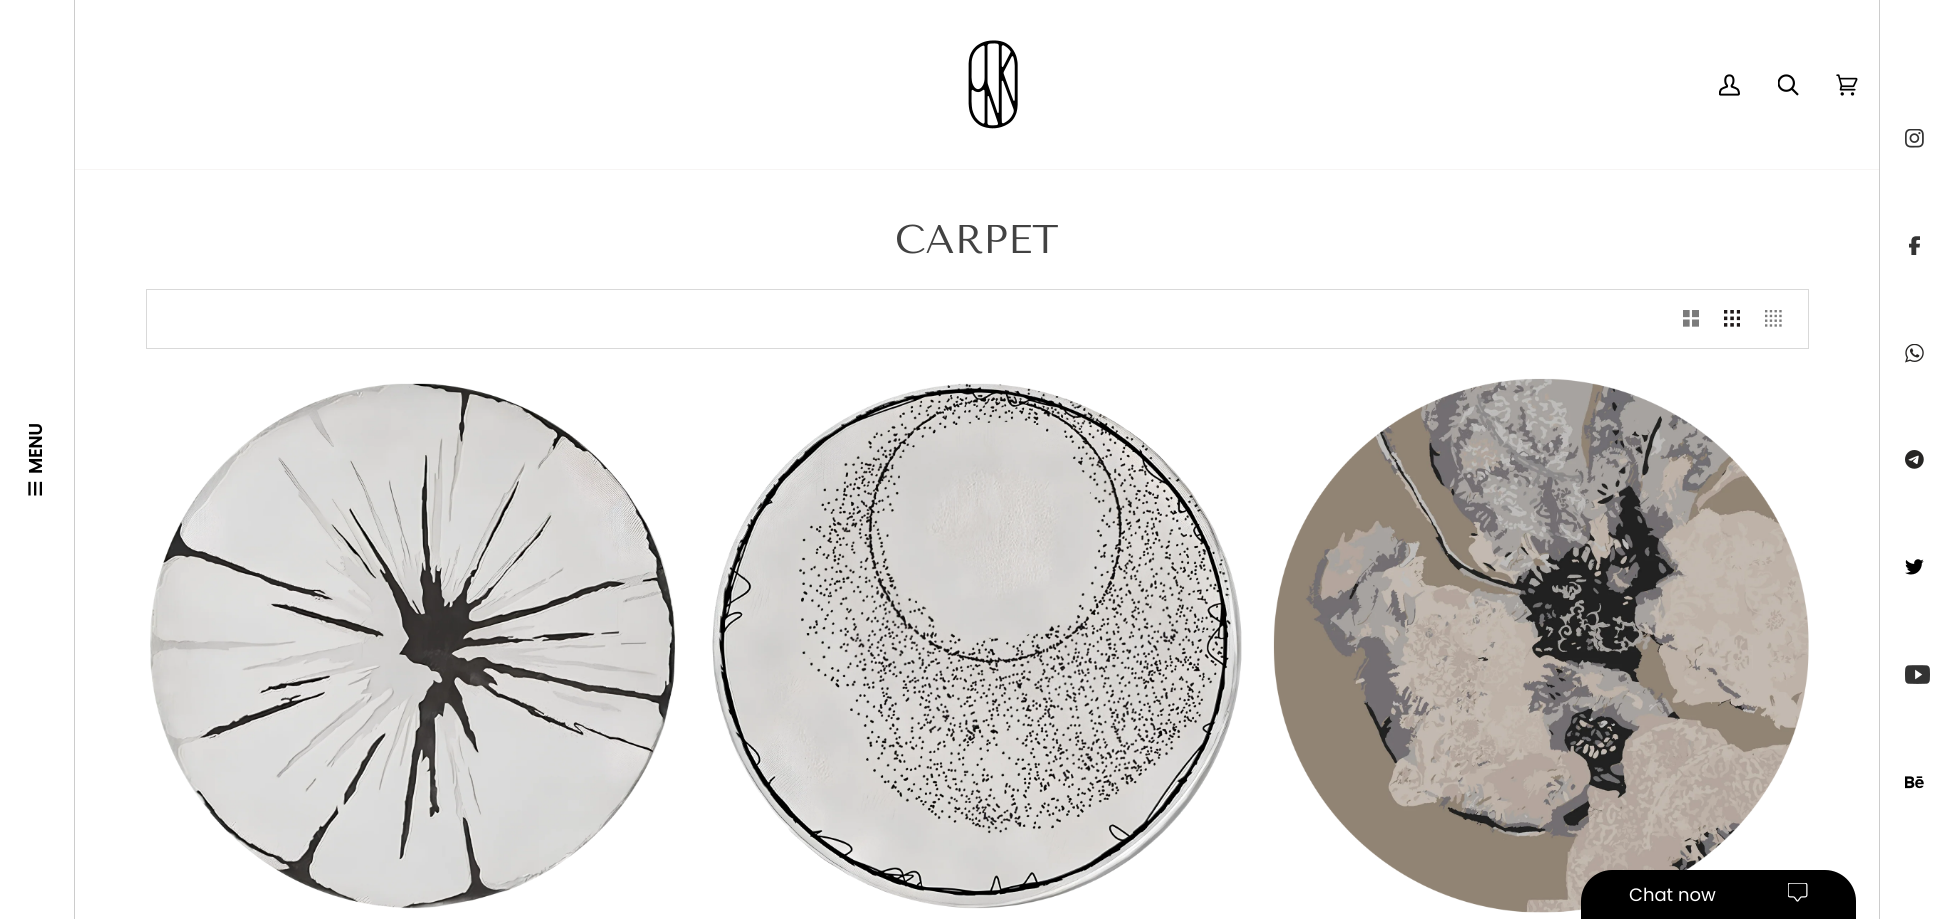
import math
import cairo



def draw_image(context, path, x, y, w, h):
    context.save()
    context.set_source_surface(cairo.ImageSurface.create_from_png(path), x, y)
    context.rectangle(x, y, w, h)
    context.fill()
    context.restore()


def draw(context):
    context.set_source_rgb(1, 1, 1)
    context.paint()
    context.rectangle(146.5, 289.5, 1662, 59)
    context.set_source_rgb(217 / 255, 217 / 255, 217 / 255)
    context.set_line_width(1)
    context.stroke()
    draw_image(context, "images/1.png", 1683, 310, 16, 17)
    draw_image(context, "images/2.png", 1724, 310, 16, 17)
    draw_image(context, "images/3.png", 1765, 310, 17, 17)
    draw_image(context, "images/4.png", 150, 383, 526, 526)
    draw_image(context, "images/5.png", 712, 383, 530, 526)
    draw_image(context, "images/6.png", 1273, 378, 536, 535)
    context.set_source_rgb(247 / 255, 245 / 255, 244 / 255)
    context.rectangle(75, 169, 1804, 1)
    context.fill()
    draw_image(context, "images/7.png", 968, 40, 50, 89)
    draw_image(context, "images/8.png", 1719, 74, 21, 22)
    draw_image(context, "images/9.png", 1778, 74, 21, 22)
    draw_image(context, "images/10.png", 1836, 74, 22, 22)
    context.set_source_rgb(204 / 255, 204 / 255, 204 / 255)
    context.rectangle(1879, 0, 1, 919)
    context.fill()
    draw_image(context, "images/11.png", 1905, 129, 19, 19)
    draw_image(context, "images/12.png", 1909, 236, 11, 19)
    draw_image(context, "images/13.png", 1905, 344, 19, 19)
    draw_image(context, "images/14.png", 1905, 450, 19, 19)
    draw_image(context, "images/15.png", 1905, 559, 19, 16)
    draw_image(context, "images/16.png", 1905, 665, 25, 19)
    draw_image(context, "images/17.png", 1905, 776, 19, 13)
    context.rectangle(74, 0, 1, 919)
    context.fill()
    context.set_source_rgb(0, 0, 0)
    context.new_path()
    context.move_to(1612, 870)
    context.line_to(1825, 870)
    context.curve_to(1842, 870, 1856, 884, 1856, 901)
    context.line_to(1856, 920)
    context.line_to(1581, 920)
    context.line_to(1581, 901)
    context.curve_to(1581, 884, 1595, 870, 1612, 870)
    context.close_path()
    context.fill()
    draw_image(context, "images/18.png", 1788, 883, 20, 19)
    context.select_font_face("Tenor Sans")
    context.set_font_size(40)
    context.set_source_rgb(66 / 255, 66 / 255, 66 / 255)
    context.move_to(895, 253)
    context.show_text("CARPET")
    context.select_font_face("Poppins", cairo.FontSlant.NORMAL, cairo.FontWeight.BOLD)
    context.set_font_size(18)
    context.set_source_rgb(0, 0, 0)
    context.save()
    context.translate(42, 474)
    context.rotate(-90 * math.pi / 180)
    context.move_to(0, 0)
    context.show_text("MENU")
    context.restore()
    context.select_font_face("DejaVu Sans", cairo.FontSlant.NORMAL, cairo.FontWeight.BOLD)
    context.save()
    context.translate(42, 497)
    context.rotate(-90 * math.pi / 180)
    context.move_to(0, 0)
    context.show_text("☰")
    context.restore()
    context.select_font_face("Poppins")
    context.set_source_rgb(1, 1, 1)
    context.move_to(1629, 901)
    context.show_text("Chat now")


surface = cairo.ImageSurface(cairo.Format.RGB24, 1953, 919)
context = cairo.Context(surface)
options = cairo.FontOptions()
options.set_hint_metrics(cairo.HintMetrics.OFF)
options.set_hint_style(cairo.HintStyle.NONE)
context.set_font_options(options)
context.set_miter_limit(4)
draw(context)
surface.write_to_png("out.png")
